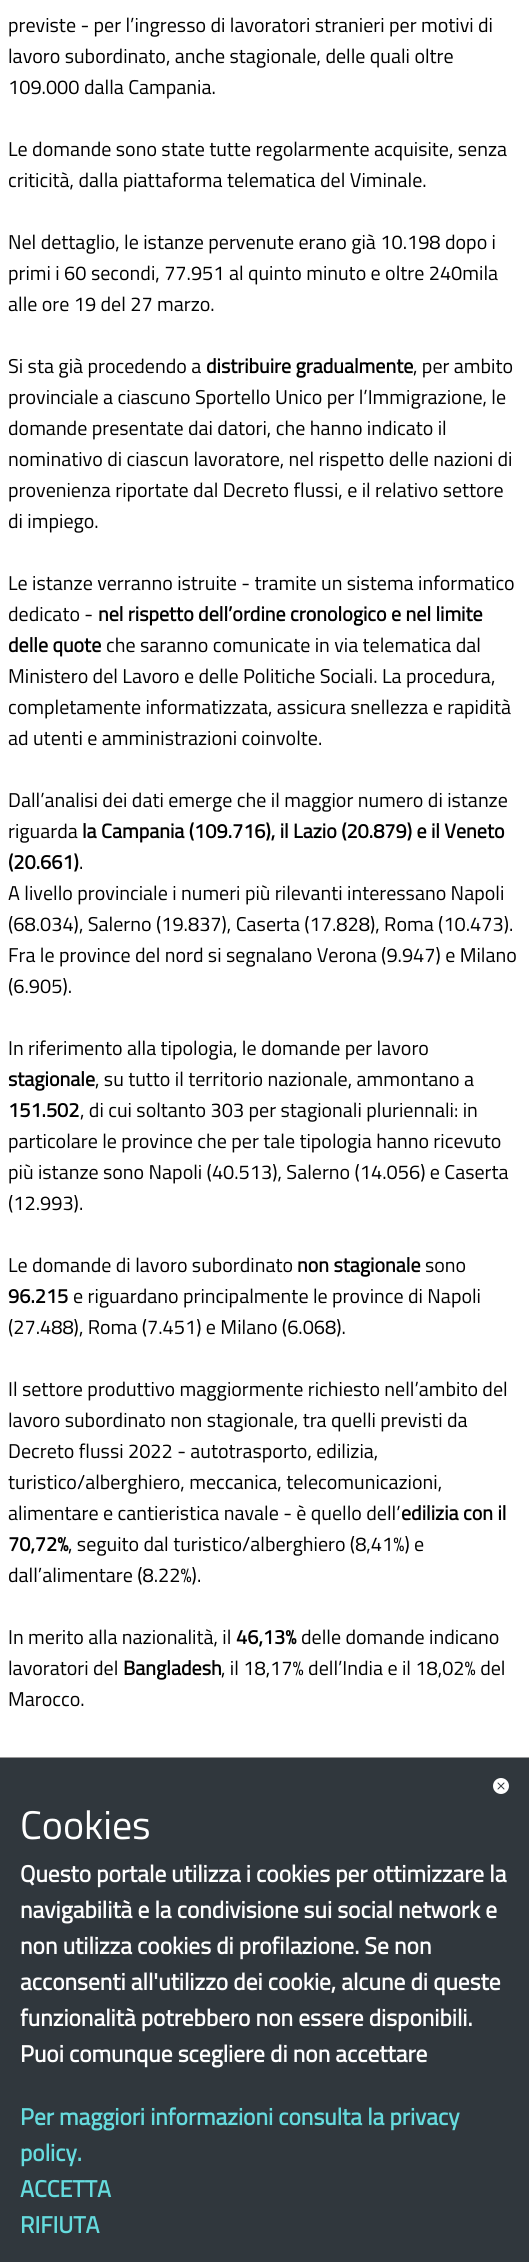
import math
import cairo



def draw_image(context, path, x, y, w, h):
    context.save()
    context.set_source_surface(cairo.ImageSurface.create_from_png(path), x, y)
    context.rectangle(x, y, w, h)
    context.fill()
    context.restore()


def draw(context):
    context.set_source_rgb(1, 1, 1)
    context.paint()
    context.set_source_rgb(48 / 255, 55 / 255, 61 / 255)
    context.rectangle(0, 1758, 529, 504)
    context.fill()
    context.set_source_rgb(153 / 255, 153 / 255, 153 / 255)
    context.rectangle(0, 1757, 529, 1)
    context.fill()
    draw_image(context, "images/1.png", 493, 1778, 16, 16)
    context.select_font_face("Titillium Web")
    context.set_font_size(20)
    context.set_source_rgb(0, 0, 0)
    context.move_to(8, 32)
    context.show_text("previste - per l’ingresso di lavoratori stranieri per motivi di")
    context.move_to(8, 63)
    context.show_text("lavoro subordinato, anche stagionale, delle quali oltre")
    context.move_to(8, 94)
    context.show_text("109.000 dalla Campania.")
    context.move_to(8, 156)
    context.show_text("Le domande sono state tutte regolarmente acquisite, senza")
    context.move_to(8, 187)
    context.show_text("criticità, dalla piattaforma telematica del Viminale.")
    context.move_to(8, 249)
    context.show_text("Nel dettaglio, le istanze pervenute erano già 10.198 dopo i")
    context.move_to(8, 280)
    context.show_text("primi i 60 secondi, 77.951 al quinto minuto e oltre 240mila")
    context.move_to(8, 311)
    context.show_text("alle ore 19 del 27 marzo.")
    context.move_to(8, 373)
    context.show_text("Si sta già procedendo a")
    context.select_font_face("Titillium Web", cairo.FontSlant.NORMAL, cairo.FontWeight.BOLD)
    context.move_to(206, 373)
    context.show_text("distribuire gradualmente")
    context.select_font_face("Titillium Web")
    context.move_to(413, 373)
    context.show_text(", per ambito")
    context.move_to(8, 404)
    context.show_text("provinciale a ciascuno Sportello Unico per l’Immigrazione, le")
    context.move_to(8, 435)
    context.show_text("domande presentate dai datori, che hanno indicato il")
    context.move_to(8, 466)
    context.show_text("nominativo di ciascun lavoratore, nel rispetto delle nazioni di")
    context.move_to(8, 497)
    context.show_text("provenienza riportate dal Decreto flussi, e il relativo settore")
    context.move_to(8, 528)
    context.show_text("di impiego.")
    context.move_to(8, 590)
    context.show_text("Le istanze verranno istruite - tramite un sistema informatico")
    context.move_to(8, 621)
    context.show_text("dedicato -")
    context.select_font_face("Titillium Web", cairo.FontSlant.NORMAL, cairo.FontWeight.BOLD)
    context.move_to(98, 621)
    context.show_text("nel rispetto dell’ordine cronologico e nel limite")
    context.move_to(8, 652)
    context.show_text("delle quote")
    context.select_font_face("Titillium Web")
    context.move_to(106, 652)
    context.show_text("che saranno comunicate in via telematica dal")
    context.move_to(8, 683)
    context.show_text("Ministero del Lavoro e delle Politiche Sociali. La procedura,")
    context.move_to(8, 714)
    context.show_text("completamente informatizzata, assicura snellezza e rapidità")
    context.move_to(8, 745)
    context.show_text("ad utenti e amministrazioni coinvolte.")
    context.move_to(8, 807)
    context.show_text("Dall’analisi dei dati emerge che il maggior numero di istanze")
    context.move_to(8, 838)
    context.show_text("riguarda")
    context.select_font_face("Titillium Web", cairo.FontSlant.NORMAL, cairo.FontWeight.BOLD)
    context.move_to(82, 838)
    context.show_text("la Campania (109.716), il Lazio (20.879) e il Veneto")
    context.move_to(8, 869)
    context.show_text("(20.661)")
    context.select_font_face("Titillium Web")
    context.move_to(79, 869)
    context.show_text(".")
    context.move_to(8, 900)
    context.show_text("A livello provinciale i numeri più rilevanti interessano Napoli")
    context.move_to(8, 931)
    context.show_text("(68.034), Salerno (19.837), Caserta (17.828), Roma (10.473).")
    context.move_to(8, 962)
    context.show_text("Fra le province del nord si segnalano Verona (9.947) e Milano")
    context.move_to(8, 993)
    context.show_text("(6.905).")
    context.move_to(8, 1055)
    context.show_text("In riferimento alla tipologia, le domande per lavoro")
    context.select_font_face("Titillium Web", cairo.FontSlant.NORMAL, cairo.FontWeight.BOLD)
    context.move_to(8, 1086)
    context.show_text("stagionale")
    context.select_font_face("Titillium Web")
    context.move_to(95, 1086)
    context.show_text(", su tutto il territorio nazionale, ammontano a")
    context.select_font_face("Titillium Web", cairo.FontSlant.NORMAL, cairo.FontWeight.BOLD)
    context.move_to(8, 1117)
    context.show_text("151.502")
    context.select_font_face("Titillium Web")
    context.move_to(80, 1117)
    context.show_text(", di cui soltanto 303 per stagionali pluriennali: in")
    context.move_to(8, 1148)
    context.show_text("particolare le province che per tale tipologia hanno ricevuto")
    context.move_to(8, 1179)
    context.show_text("più istanze sono Napoli (40.513), Salerno (14.056) e Caserta")
    context.move_to(8, 1210)
    context.show_text("(12.993).")
    context.move_to(8, 1272)
    context.show_text("Le domande di lavoro subordinato")
    context.select_font_face("Titillium Web", cairo.FontSlant.NORMAL, cairo.FontWeight.BOLD)
    context.move_to(297, 1272)
    context.show_text("non stagionale")
    context.select_font_face("Titillium Web")
    context.move_to(425, 1272)
    context.show_text("sono")
    context.select_font_face("Titillium Web", cairo.FontSlant.NORMAL, cairo.FontWeight.BOLD)
    context.move_to(8, 1303)
    context.show_text("96.215")
    context.select_font_face("Titillium Web")
    context.move_to(73, 1303)
    context.show_text("e riguardano principalmente le province di Napoli")
    context.move_to(8, 1334)
    context.show_text("(27.488), Roma (7.451) e Milano (6.068).")
    context.move_to(8, 1396)
    context.show_text("Il settore produttivo maggiormente richiesto nell’ambito del")
    context.move_to(8, 1427)
    context.show_text("lavoro subordinato non stagionale, tra quelli previsti da")
    context.move_to(8, 1458)
    context.show_text("Decreto flussi 2022 - autotrasporto, edilizia,")
    context.move_to(8, 1489)
    context.show_text("turistico/alberghiero, meccanica, telecomunicazioni,")
    context.move_to(8, 1520)
    context.show_text("alimentare e cantieristica navale - è quello dell’")
    context.select_font_face("Titillium Web", cairo.FontSlant.NORMAL, cairo.FontWeight.BOLD)
    context.move_to(401, 1520)
    context.show_text("edilizia con il")
    context.move_to(8, 1551)
    context.show_text("70,72%")
    context.select_font_face("Titillium Web")
    context.move_to(68, 1551)
    context.show_text(", seguito dal turistico/alberghiero (8,41%) e")
    context.move_to(8, 1582)
    context.show_text("dall’alimentare (8.22%).")
    context.move_to(8, 1644)
    context.show_text("In merito alla nazionalità, il")
    context.select_font_face("Titillium Web", cairo.FontSlant.NORMAL, cairo.FontWeight.BOLD)
    context.move_to(236, 1644)
    context.show_text("46,13%")
    context.select_font_face("Titillium Web")
    context.move_to(301, 1644)
    context.show_text("delle domande indicano")
    context.move_to(8, 1675)
    context.show_text("lavoratori del")
    context.select_font_face("Titillium Web", cairo.FontSlant.NORMAL, cairo.FontWeight.BOLD)
    context.move_to(123, 1675)
    context.show_text("Bangladesh")
    context.select_font_face("Titillium Web")
    context.move_to(221, 1675)
    context.show_text(", il 18,17% dell’India e il 18,02% del")
    context.move_to(8, 1706)
    context.show_text("Marocco.")
    context.set_font_size(40)
    context.set_source_rgb(1, 1, 1)
    context.move_to(20, 1839)
    context.show_text("Cookies")
    context.select_font_face("Titillium Web", cairo.FontSlant.NORMAL, cairo.FontWeight.BOLD)
    context.set_font_size(23.4)
    context.move_to(20, 1882)
    context.show_text("Questo portale utilizza i cookies per ottimizzare la")
    context.move_to(20, 1918)
    context.show_text("navigabilità e la condivisione sui social network e")
    context.move_to(20, 1954)
    context.show_text("non utilizza cookies di profilazione. Se non")
    context.move_to(20, 1990)
    context.show_text("acconsenti all'utilizzo dei cookie, alcune di queste")
    context.move_to(20, 2026)
    context.show_text("funzionalità potrebbero non essere disponibili.")
    context.move_to(20, 2062)
    context.show_text("Puoi comunque scegliere di non accettare")
    context.set_source_rgb(101 / 255, 219 / 255, 222 / 255)
    context.move_to(20, 2125)
    context.show_text("Per maggiori informazioni consulta la privacy")
    context.move_to(20, 2161)
    context.show_text("policy.")
    context.move_to(20, 2197)
    context.show_text("ACCETTA")
    context.move_to(20, 2233)
    context.show_text("RIFIUTA")


surface = cairo.ImageSurface(cairo.Format.RGB24, 529, 2262)
context = cairo.Context(surface)
options = cairo.FontOptions()
options.set_hint_metrics(cairo.HintMetrics.OFF)
options.set_hint_style(cairo.HintStyle.NONE)
context.set_font_options(options)
context.set_miter_limit(4)
draw(context)
surface.write_to_png("out.png")
